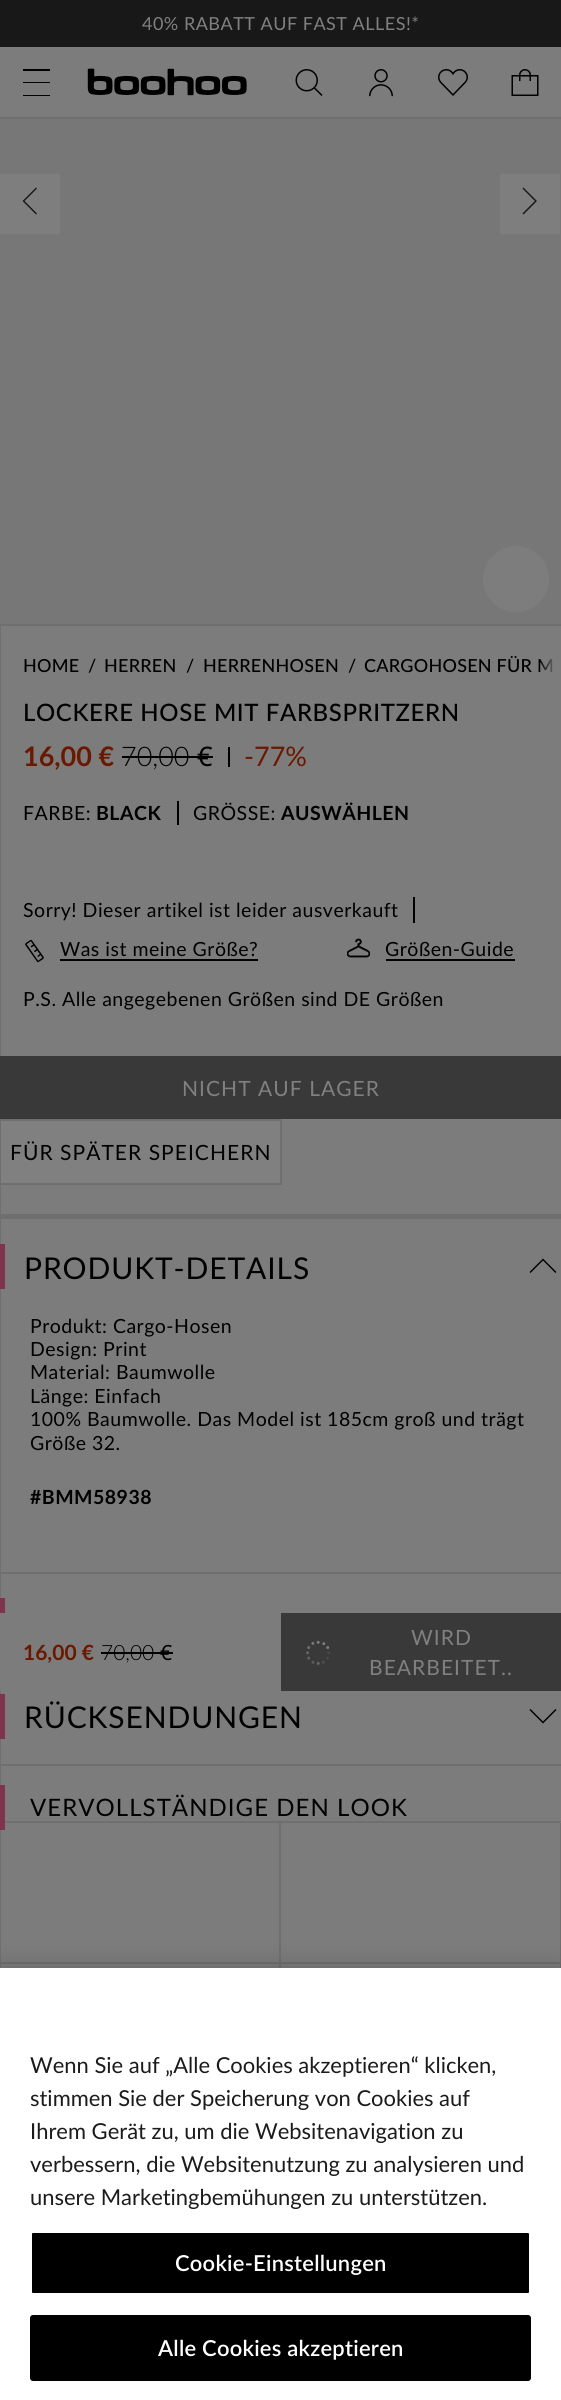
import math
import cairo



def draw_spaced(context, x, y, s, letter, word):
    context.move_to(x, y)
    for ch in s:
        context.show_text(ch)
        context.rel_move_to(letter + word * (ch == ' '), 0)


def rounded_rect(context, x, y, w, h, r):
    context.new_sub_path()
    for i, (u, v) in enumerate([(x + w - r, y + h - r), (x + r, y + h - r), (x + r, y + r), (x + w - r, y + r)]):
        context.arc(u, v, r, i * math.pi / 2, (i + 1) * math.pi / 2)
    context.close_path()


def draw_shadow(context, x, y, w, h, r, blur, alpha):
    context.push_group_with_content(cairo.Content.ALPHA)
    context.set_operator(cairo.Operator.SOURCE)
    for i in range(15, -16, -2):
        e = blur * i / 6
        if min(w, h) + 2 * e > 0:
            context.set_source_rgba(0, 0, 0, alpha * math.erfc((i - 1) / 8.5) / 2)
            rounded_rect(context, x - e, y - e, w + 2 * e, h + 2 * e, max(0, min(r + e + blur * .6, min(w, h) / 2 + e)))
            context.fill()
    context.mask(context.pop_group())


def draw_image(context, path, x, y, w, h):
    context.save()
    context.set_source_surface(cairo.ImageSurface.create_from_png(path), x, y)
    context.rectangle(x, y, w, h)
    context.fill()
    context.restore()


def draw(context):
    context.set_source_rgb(124 / 255, 124 / 255, 124 / 255)
    context.paint()
    context.rectangle(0, -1, 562, 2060)
    context.set_source_rgb(111 / 255, 111 / 255, 111 / 255)
    context.stroke()
    context.rectangle(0, -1, 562, 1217)
    context.stroke()
    context.rectangle(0, -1, 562, 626)
    context.stroke()
    context.set_source_rgb(124 / 255, 124 / 255, 124 / 255)
    context.rectangle(0, 47, 1, 70)
    context.fill()
    context.set_source_rgb(24 / 255, 24 / 255, 24 / 255)
    context.rectangle(0, 0, 561, 47)
    context.fill()
    context.set_source_rgb(111 / 255, 111 / 255, 111 / 255)
    context.rectangle(0, 117, 561, 2)
    context.fill()
    context.set_source_rgb(0, 0, 0)
    context.rectangle(23, 69, 27, 2)
    context.fill()
    context.rectangle(23, 95, 27, 1)
    context.fill()
    context.rectangle(23, 82, 27, 1)
    context.fill()
    draw_image(context, "images/1.png", 87, 68, 160, 28)
    draw_image(context, "images/2.png", 295, 69, 28, 27)
    draw_image(context, "images/3.png", 369, 69, 24, 28)
    draw_image(context, "images/4.png", 438, 69, 30, 27)
    draw_image(context, "images/5.png", 511, 69, 28, 27)
    context.set_source_rgb(120 / 255, 119 / 255, 120 / 255)
    context.rectangle(0, 119, 561, 505)
    context.fill()
    context.set_source_rgb(126 / 255, 126 / 255, 126 / 255)
    context.rectangle(0, 174, 60, 60)
    context.fill()
    draw_image(context, "images/6.png", 22, 187, 15, 28)
    context.rectangle(500, 174, 60, 60)
    context.fill()
    draw_image(context, "images/7.png", 522, 187, 15, 28)
    context.set_source_rgb(125 / 255, 125 / 255, 125 / 255)
    context.arc(516, 579, 33, 0, 2 * math.pi)
    context.fill()
    context.set_source_rgb(0, 0, 0)
    context.rectangle(122, 756, 91, 2)
    context.fill()
    context.rectangle(228, 747, 2, 20)
    context.fill()
    context.rectangle(177, 801, 2, 24)
    context.fill()
    context.rectangle(413, 897, 2, 26)
    context.fill()
    draw_image(context, "images/8.png", 25, 939, 19, 24)
    context.rectangle(60, 959, 198, 2)
    context.fill()
    draw_image(context, "images/9.png", 347, 938, 24, 20)
    context.rectangle(386, 959, 129, 2)
    context.fill()
    context.set_source_rgb(57 / 255, 57 / 255, 57 / 255)
    context.rectangle(0, 1056, 561, 63)
    context.fill()
    context.set_source_rgb(128 / 255, 128 / 255, 128 / 255)
    context.rectangle(1, 1121, 279, 62)
    context.fill()
    context.rectangle(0, 1120, 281, 64)
    context.set_source_rgb(111 / 255, 111 / 255, 111 / 255)
    context.stroke()
    context.rectangle(0, 1214, 561, 1)
    context.fill()
    context.set_source_rgb(124 / 255, 124 / 255, 124 / 255)
    context.rectangle(0, 1613, 1, 78)
    context.fill()
    context.set_source_rgb(0, 0, 0)
    context.rectangle(101, 1652, 72, 2)
    context.fill()
    context.set_source_rgb(57 / 255, 57 / 255, 57 / 255)
    context.rectangle(281, 1613, 280, 78)
    context.fill()
    draw_image(context, "images/10.png", 306, 1640, 24, 25)
    context.set_source_rgb(111 / 255, 111 / 255, 111 / 255)
    context.rectangle(0, 1217, 561, 2)
    context.fill()
    context.rectangle(0, 1572, 561, 2)
    context.fill()
    context.set_source_rgb(128 / 255, 51 / 255, 77 / 255)
    context.rectangle(0, 1244, 5, 45)
    context.fill()
    draw_image(context, "images/11.png", 529, 1258, 28, 15)
    context.rectangle(0, 1598, 5, 15)
    context.fill()
    context.set_source_rgb(111 / 255, 111 / 255, 111 / 255)
    context.rectangle(0, 1764, 561, 2)
    context.fill()
    context.set_source_rgb(128 / 255, 51 / 255, 77 / 255)
    context.rectangle(0, 1694, 5, 45)
    context.fill()
    draw_image(context, "images/12.png", 529, 1709, 28, 15)
    context.set_source_rgb(111 / 255, 111 / 255, 111 / 255)
    context.new_path()
    context.move_to(-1, 1794)
    context.line_to(-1, 1823)
    context.line_to(560, 1823)
    context.line_to(560, 1822)
    context.line_to(0, 1822)
    context.line_to(0, 1794)
    context.close_path()
    context.fill()
    context.rectangle(0, 1821, 561, 1)
    context.fill()
    context.set_source_rgb(128 / 255, 51 / 255, 77 / 255)
    context.rectangle(0, 1785, 5, 45)
    context.fill()
    context.set_source_rgb(111 / 255, 111 / 255, 111 / 255)
    context.rectangle(279, 1823, 2, 145)
    context.fill()
    context.rectangle(0, 1962, 279, 2)
    context.fill()
    context.rectangle(560, 1823, 1, 145)
    context.fill()
    context.rectangle(281, 1962, 279, 2)
    context.fill()
    context.set_source_rgb(0, 0, 0)
    draw_shadow(context, 0, 1968, 561, 432, 0, 13.5, 0.2)
    context.set_source_rgb(1, 1, 1)
    context.rectangle(0, 1968, 561, 432)
    context.fill()
    context.set_source_rgb(0, 0, 0)
    rounded_rect(context, 31, 2232, 499, 62, 2)
    context.fill_preserve()
    context.set_source_rgb(1, 1, 1)
    context.stroke()
    context.set_source_rgb(0, 0, 0)
    rounded_rect(context, 31, 2316, 499, 64, 2)
    context.fill_preserve()
    context.stroke()
    context.select_font_face("Lato")
    context.set_font_size(18)
    context.set_source_rgb(128 / 255, 128 / 255, 128 / 255)
    draw_spaced(context, 142, 30, "40% RABATT AUF FAST ALLES!*", 0.5, 0)
    context.select_font_face("Lato Medium")
    context.set_source_rgb(0, 0, 0)
    draw_spaced(context, 23, 672, "HOME", 0.25, 0)
    draw_spaced(context, 88, 672, "/", 0.25, 0)
    draw_spaced(context, 104, 672, "HERREN", 0.25, 0)
    draw_spaced(context, 186, 672, "/", 0.25, 0)
    draw_spaced(context, 203, 672, "HERRENHOSEN", 0.25, 0)
    draw_spaced(context, 348, 672, "/", 0.25, 0)
    draw_spaced(context, 364, 672, "CARGOHOSEN FÜR M", 0.25, 0)
    gradient = cairo.LinearGradient(561, 665, 539, 665)
    gradient.add_color_stop_rgba(0.15, 124 / 255, 124 / 255, 124 / 255, 1)
    gradient.add_color_stop_rgba(1, 124 / 255, 124 / 255, 124 / 255, 0)
    context.set_source(gradient)
    context.rectangle(540, 659, 14, 13)
    context.fill()
    context.set_font_size(24)
    context.set_source_rgb(0, 0, 0)
    draw_spaced(context, 23, 721, "LOCKERE HOSE MIT FARBSPRITZERN", 0.6, 0)
    context.select_font_face("Lato", cairo.FontSlant.NORMAL, cairo.FontWeight.BOLD)
    context.set_font_size(27)
    context.set_source_rgb(106 / 255, 25 / 255, 0)
    context.move_to(23, 766)
    context.show_text("16,00 €")
    context.select_font_face("Lato Light")
    context.set_source_rgb(0, 0, 0)
    context.move_to(121, 766)
    context.show_text("70,00")
    context.select_font_face("Noto Sans")
    context.move_to(197, 766)
    context.show_text("€")
    context.select_font_face("Lato")
    context.set_source_rgb(106 / 255, 25 / 255, 0)
    context.move_to(244, 766)
    context.show_text("-77%")
    context.set_font_size(19.5)
    context.set_source_rgb(0, 0, 0)
    draw_spaced(context, 23, 820, "FARBE:", 0.5, 0)
    context.select_font_face("Lato", cairo.FontSlant.NORMAL, cairo.FontWeight.BOLD)
    draw_spaced(context, 96, 820, "BLACK", 0.5, 0)
    context.select_font_face("Lato")
    draw_spaced(context, 193, 820, "GRÖSSE:", 0.5, 0)
    context.select_font_face("Lato", cairo.FontSlant.NORMAL, cairo.FontWeight.BOLD)
    draw_spaced(context, 281, 820, "AUSWÄHLEN", 0.5, 0)
    context.select_font_face("Lato")
    draw_spaced(context, 23, 917, "Sorry! Dieser artikel ist leider ausverkauft", 0.5, 0)
    draw_spaced(context, 60, 956, "Was ist meine Größe?", 0.5, 0)
    draw_spaced(context, 385, 956, "Größen-Guide", 0.5, 0)
    draw_spaced(context, 23, 1006, "P.S. Alle angegebenen Größen sind DE Größen", 0.5, 0)
    context.set_font_size(21)
    context.set_source_rgb(128 / 255, 128 / 255, 128 / 255)
    draw_spaced(context, 182, 1096, "NICHT AUF LAGER", 1.05, 0)
    context.set_source_rgb(0, 0, 0)
    draw_spaced(context, 10, 1160, "FÜR SPÄTER SPEICHERN", 1.05, 0)
    context.select_font_face("Lato", cairo.FontSlant.NORMAL, cairo.FontWeight.BOLD)
    context.set_source_rgb(106 / 255, 25 / 255, 0)
    context.move_to(23, 1660)
    context.show_text("16,00 €")
    context.select_font_face("Lato Light")
    context.set_source_rgb(0, 0, 0)
    context.move_to(101, 1660)
    context.show_text("70,00")
    context.select_font_face("Noto Sans")
    context.move_to(160, 1660)
    context.show_text("€")
    context.select_font_face("Lato")
    context.set_source_rgb(128 / 255, 128 / 255, 128 / 255)
    draw_spaced(context, 411, 1645, "WIRD", 1.05, 0)
    draw_spaced(context, 369, 1675, "BEARBEITET..", 1.05, 0)
    context.set_font_size(30)
    context.set_source_rgb(0, 0, 0)
    draw_spaced(context, 24, 1279, "PRODUKT-DETAILS", 0.9, 0)
    context.set_font_size(19.5)
    draw_spaced(context, 30, 1333, "Produkt: Cargo-Hosen", 0.5, 0)
    draw_spaced(context, 30, 1356, "Design: Print", 0.5, 0)
    draw_spaced(context, 30, 1379, "Material: Baumwolle", 0.5, 0)
    draw_spaced(context, 30, 1403, "Länge: Einfach", 0.5, 0)
    draw_spaced(context, 30, 1426, "100% Baumwolle. Das Model ist 185cm groß und trägt", 0.5, 0)
    draw_spaced(context, 30, 1450, "Größe 32.", 0.5, 0)
    context.select_font_face("Lato", cairo.FontSlant.NORMAL, cairo.FontWeight.BOLD)
    draw_spaced(context, 30, 1504, "#BMM58938", 0.5, 0)
    context.select_font_face("Lato")
    context.set_font_size(30)
    draw_spaced(context, 24, 1728, "RÜCKSENDUNGEN", 0.9, 0)
    context.set_font_size(24)
    draw_spaced(context, 30, 1816, "VERVOLLSTÄNDIGE DEN LOOK", 1.05, 0)
    context.set_font_size(21.95)
    context.set_source_rgb(27 / 255, 27 / 255, 27 / 255)
    context.move_to(30, 2073)
    context.show_text("Wenn Sie auf „Alle Cookies akzeptieren“ klicken,")
    context.move_to(30, 2106)
    context.show_text("stimmen Sie der Speicherung von Cookies auf")
    context.move_to(30, 2139)
    context.show_text("Ihrem Gerät zu, um die Websitenavigation zu")
    context.move_to(30, 2172)
    context.show_text("verbessern, die Websitenutzung zu analysieren und")
    context.move_to(30, 2205)
    context.show_text("unsere Marketingbemühungen zu unterstützen.")
    context.select_font_face("Lato SemiBold")
    context.set_source_rgb(1, 1, 1)
    draw_spaced(context, 175, 2271, "Cookie-Einstellungen", 0.25, 0)
    draw_spaced(context, 158, 2356, "Alle Cookies akzeptieren", 0.25, 0)


surface = cairo.ImageSurface(cairo.Format.RGB24, 561, 2400)
context = cairo.Context(surface)
options = cairo.FontOptions()
options.set_hint_metrics(cairo.HintMetrics.OFF)
options.set_hint_style(cairo.HintStyle.NONE)
context.set_font_options(options)
context.set_miter_limit(4)
draw(context)
surface.write_to_png("out.png")
